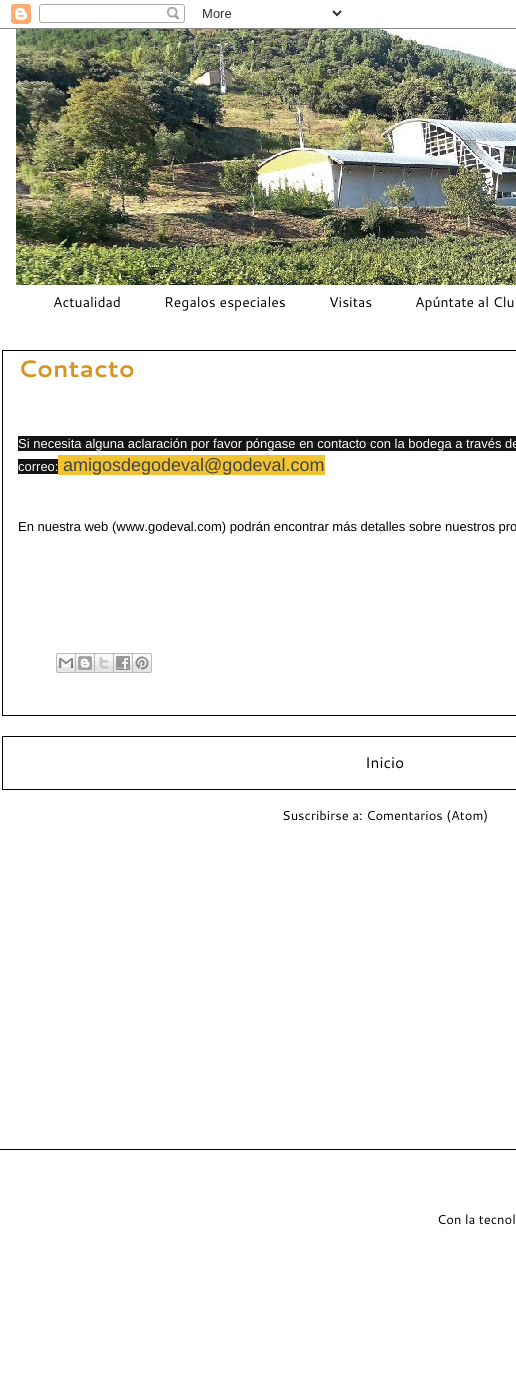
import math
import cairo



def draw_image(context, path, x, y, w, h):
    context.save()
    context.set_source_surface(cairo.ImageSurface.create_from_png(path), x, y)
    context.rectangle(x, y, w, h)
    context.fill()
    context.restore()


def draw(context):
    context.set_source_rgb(1, 1, 1)
    context.paint()
    draw_image(context, "images/1.png", 0, 4, 516, 25)
    draw_image(context, "images/2.png", 16, 29, 500, 256)
    context.rectangle(2.5, 350.5, 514, 365)
    context.set_source_rgb(0, 0, 0)
    context.set_line_width(1)
    context.stroke()
    context.set_source_rgb(20 / 255, 20 / 255, 20 / 255)
    context.rectangle(18, 436, 498, 15)
    context.fill()
    context.rectangle(18, 459, 40, 15)
    context.fill()
    context.set_source_rgb(241 / 255, 194 / 255, 50 / 255)
    context.rectangle(58, 455, 267, 20)
    context.fill()
    draw_image(context, "images/3.png", 56, 653, 20, 20)
    draw_image(context, "images/4.png", 76, 653, 19, 20)
    draw_image(context, "images/5.png", 95, 653, 19, 20)
    draw_image(context, "images/6.png", 114, 653, 19, 20)
    draw_image(context, "images/7.png", 133, 653, 19, 20)
    context.rectangle(2.5, 736.5, 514, 53)
    context.set_source_rgb(0, 0, 0)
    context.stroke()
    context.rectangle(0, 1149, 516, 1)
    context.fill()
    context.select_font_face("Cantarell")
    context.set_font_size(14)
    context.move_to(53, 307)
    context.show_text("Actualidad")
    context.move_to(164, 307)
    context.show_text("Regalos especiales")
    context.move_to(329, 307)
    context.show_text("Visitas")
    context.move_to(415, 307)
    context.show_text("Apúntate al Clu")
    context.select_font_face("Cantarell", cairo.FontSlant.NORMAL, cairo.FontWeight.BOLD)
    context.set_font_size(24)
    context.set_source_rgb(213 / 255, 148 / 255, 35 / 255)
    context.move_to(18, 377)
    context.show_text("Contacto")
    context.select_font_face("Liberation Sans")
    context.set_font_size(13)
    context.set_source_rgb(1, 1, 1)
    context.move_to(18, 448)
    context.show_text("Si necesita alguna aclaración por favor póngase en contacto con la bodega a través de")
    context.move_to(18, 471)
    context.show_text("correo:")
    context.set_font_size(18)
    context.set_source_rgb(68 / 255, 68 / 255, 68 / 255)
    context.move_to(63, 471)
    context.show_text("amigosdegodeval@godeval.com")
    context.set_font_size(13)
    context.set_source_rgb(0, 0, 0)
    context.move_to(18, 531)
    context.show_text("En nuestra web (www.godeval.com) podrán encontrar más detalles sobre nuestros pro")
    context.select_font_face("Cantarell")
    context.set_font_size(15.5)
    context.move_to(365, 768)
    context.show_text("Inicio")
    context.set_font_size(13)
    context.move_to(282, 820)
    context.show_text("Suscribirse a: Comentarios (Atom)")
    context.move_to(437, 1224)
    context.show_text("Con la tecnol")


surface = cairo.ImageSurface(cairo.Format.RGB24, 516, 1376)
context = cairo.Context(surface)
options = cairo.FontOptions()
options.set_hint_metrics(cairo.HintMetrics.OFF)
options.set_hint_style(cairo.HintStyle.NONE)
context.set_font_options(options)
context.set_miter_limit(4)
draw(context)
surface.write_to_png("out.png")
